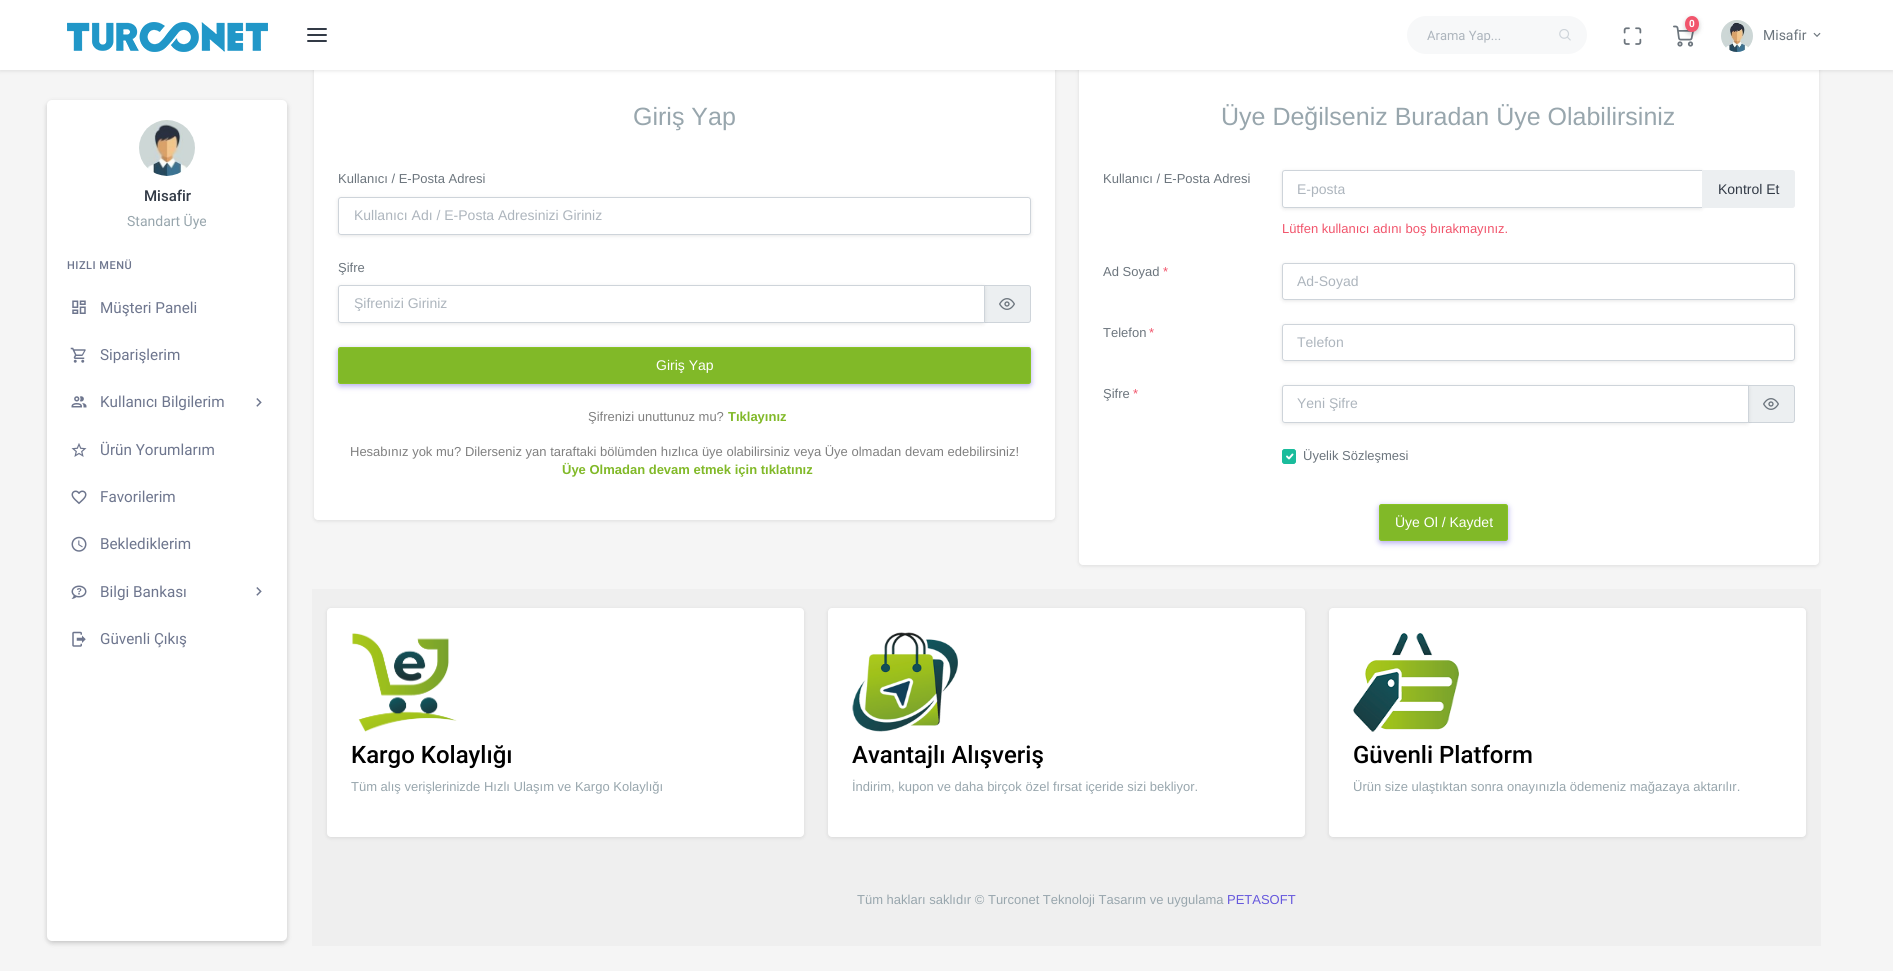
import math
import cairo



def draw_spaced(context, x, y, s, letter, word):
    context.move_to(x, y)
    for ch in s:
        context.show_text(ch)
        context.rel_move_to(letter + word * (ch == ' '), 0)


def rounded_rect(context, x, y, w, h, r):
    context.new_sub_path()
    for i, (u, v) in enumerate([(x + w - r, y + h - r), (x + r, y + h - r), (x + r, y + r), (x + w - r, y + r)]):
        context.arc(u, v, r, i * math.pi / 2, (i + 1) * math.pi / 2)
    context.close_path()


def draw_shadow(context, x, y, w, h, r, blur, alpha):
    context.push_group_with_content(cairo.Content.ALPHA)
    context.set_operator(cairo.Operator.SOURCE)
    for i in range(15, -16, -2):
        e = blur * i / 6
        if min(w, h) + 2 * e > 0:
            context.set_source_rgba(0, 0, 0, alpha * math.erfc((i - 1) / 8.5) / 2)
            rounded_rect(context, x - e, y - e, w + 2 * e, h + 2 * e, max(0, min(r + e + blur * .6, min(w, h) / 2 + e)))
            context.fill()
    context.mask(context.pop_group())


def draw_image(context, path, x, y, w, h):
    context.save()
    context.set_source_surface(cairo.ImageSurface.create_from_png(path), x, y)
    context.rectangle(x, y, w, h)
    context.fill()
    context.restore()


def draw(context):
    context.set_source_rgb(245 / 255, 245 / 255, 245 / 255)
    context.paint()
    context.set_source_rgb(0, 0, 0)
    draw_shadow(context, 314, 52, 741, 469, 4, 2, 0.1)
    context.set_source_rgb(1, 1, 1)
    rounded_rect(context, 314, 51, 741, 469, 4)
    context.fill()
    context.set_source_rgb(0, 0, 0)
    draw_shadow(context, 1079, 52, 740, 514, 4, 2, 0.1)
    context.set_source_rgb(1, 1, 1)
    rounded_rect(context, 1079, 51, 740, 514, 4)
    context.fill()
    context.set_source_rgb(0, 0, 0)
    draw_shadow(context, 0, 1, 1893, 70, 0, 2, 0.1)
    context.set_source_rgb(1, 1, 1)
    context.rectangle(0, 0, 1893, 70)
    context.fill()
    draw_image(context, "images/1.png", 67, 22, 201, 30)
    draw_image(context, "images/2.png", 307, 28, 20, 14)
    draw_image(context, "images/3.png", 1673, 25, 21, 22)
    context.set_source_rgb(0, 0, 0)
    draw_shadow(context, 1685, 18, 14, 16, 7, 3, 0.12)
    draw_shadow(context, 1687, 20, 10, 12, 5, 3, 0.16)
    context.set_source_rgb(241 / 255, 85 / 255, 108 / 255)
    context.new_path()
    context.move_to(1692, 16)
    context.curve_to(1696, 16, 1699, 19.5, 1699, 24)
    context.curve_to(1699, 28.5, 1696, 32, 1692, 32)
    context.curve_to(1688, 32, 1685, 28.5, 1685, 24)
    context.curve_to(1685, 19.5, 1688, 16, 1692, 16)
    context.close_path()
    context.fill()
    context.set_source_rgb(247 / 255, 248 / 255, 249 / 255)
    context.new_path()
    context.move_to(1426, 16)
    context.line_to(1543, 16)
    context.line_to(1543, 54)
    context.line_to(1426, 54)
    context.curve_to(1415.5, 54, 1407, 45.5, 1407, 35)
    context.curve_to(1407, 24.5, 1415.5, 16, 1426, 16)
    context.close_path()
    context.fill()
    context.new_path()
    context.move_to(1543, 16)
    context.line_to(1568, 16)
    context.curve_to(1578.5, 16, 1587, 24.5, 1587, 35)
    context.curve_to(1587, 45.5, 1578.5, 54, 1568, 54)
    context.line_to(1543, 54)
    context.close_path()
    context.fill()
    draw_image(context, "images/4.png", 1559, 29, 12, 12)
    draw_image(context, "images/5.png", 1623, 27, 19, 18)
    draw_image(context, "images/6.png", 1721, 20, 32, 32)
    draw_image(context, "images/7.png", 1813, 32, 8, 5)
    context.set_source_rgb(0, 0, 0)
    draw_shadow(context, 47, 102, 240, 841, 5, 3, 0.12)
    draw_shadow(context, 49, 104, 236, 837, 3, 3, 0.16)
    context.set_source_rgb(1, 1, 1)
    rounded_rect(context, 47, 100, 240, 841, 5)
    context.fill()
    draw_image(context, "images/8.png", 139, 120, 56, 56)
    draw_image(context, "images/9.png", 72, 300, 14, 14)
    draw_image(context, "images/10.png", 70, 347, 16, 16)
    draw_image(context, "images/11.png", 71, 396, 16, 12)
    draw_image(context, "images/12.png", 256, 398, 6, 9)
    draw_image(context, "images/13.png", 71, 443, 16, 14)
    draw_image(context, "images/14.png", 71, 490, 16, 15)
    draw_image(context, "images/15.png", 71, 536, 16, 16)
    draw_image(context, "images/16.png", 71, 585, 16, 14)
    draw_image(context, "images/12.png", 256, 587, 6, 9)
    draw_image(context, "images/17.png", 72, 631, 14, 16)
    context.save()
    context.set_fill_rule(cairo.FillRule.EVEN_ODD)
    context.new_path()
    context.move_to(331, 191)
    context.line_to(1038, 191)
    context.line_to(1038, 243)
    context.line_to(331, 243)
    context.close_path()
    context.move_to(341, 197)
    context.line_to(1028, 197)
    context.curve_to(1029.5, 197, 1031, 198.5, 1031, 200)
    context.line_to(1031, 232)
    context.curve_to(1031, 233.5, 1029.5, 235, 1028, 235)
    context.line_to(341, 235)
    context.curve_to(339.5, 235, 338, 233.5, 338, 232)
    context.line_to(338, 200)
    context.curve_to(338, 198.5, 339.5, 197, 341, 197)
    context.close_path()
    context.clip()
    context.set_source_rgb(0, 0, 0)
    draw_shadow(context, 338, 198, 693, 38, 3, 2, 0.1)
    context.restore()
    rounded_rect(context, 338.5, 197.5, 692, 37, 2.5)
    context.set_source_rgb(206 / 255, 212 / 255, 218 / 255)
    context.set_line_width(1)
    context.stroke()
    context.set_source_rgb(236 / 255, 239 / 255, 241 / 255)
    context.new_path()
    context.move_to(984.5, 285.5)
    context.line_to(1028, 285.5)
    context.curve_to(1029.5, 285.5, 1030.5, 286.5, 1030.5, 288)
    context.line_to(1030.5, 320)
    context.curve_to(1030.5, 321.5, 1029.5, 322.5, 1028, 322.5)
    context.line_to(984.5, 322.5)
    context.close_path()
    context.fill_preserve()
    context.set_source_rgb(206 / 255, 212 / 255, 218 / 255)
    context.stroke()
    context.save()
    context.set_fill_rule(cairo.FillRule.EVEN_ODD)
    context.new_path()
    context.move_to(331, 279)
    context.line_to(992, 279)
    context.line_to(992, 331)
    context.line_to(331, 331)
    context.close_path()
    context.move_to(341, 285)
    context.line_to(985, 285)
    context.line_to(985, 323)
    context.line_to(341, 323)
    context.curve_to(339.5, 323, 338, 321.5, 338, 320)
    context.line_to(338, 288)
    context.curve_to(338, 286.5, 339.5, 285, 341, 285)
    context.close_path()
    context.clip()
    context.set_source_rgb(0, 0, 0)
    draw_shadow(context, 338, 286, 647, 38, 3, 2, 0.1)
    context.restore()
    context.new_path()
    context.move_to(341, 285.5)
    context.line_to(984.5, 285.5)
    context.line_to(984.5, 322.5)
    context.line_to(341, 322.5)
    context.curve_to(339.5, 322.5, 338.5, 321.5, 338.5, 320)
    context.line_to(338.5, 288)
    context.curve_to(338.5, 286.5, 339.5, 285.5, 341, 285.5)
    context.close_path()
    context.stroke()
    draw_image(context, "images/18.png", 999, 298, 16, 12)
    context.set_source_rgb(102 / 255, 88 / 255, 221 / 255)
    draw_shadow(context, 338, 349, 693, 37, 2.5, 3, 0.5)
    context.set_source_rgb(129 / 255, 185 / 255, 40 / 255)
    rounded_rect(context, 338.5, 347.5, 692, 36, 2)
    context.fill_preserve()
    context.set_source_rgb(136 / 255, 195 / 255, 37 / 255)
    context.stroke()
    context.save()
    context.set_fill_rule(cairo.FillRule.EVEN_ODD)
    context.new_path()
    context.move_to(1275, 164)
    context.line_to(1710, 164)
    context.line_to(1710, 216)
    context.line_to(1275, 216)
    context.close_path()
    context.move_to(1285, 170)
    context.line_to(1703, 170)
    context.line_to(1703, 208)
    context.line_to(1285, 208)
    context.curve_to(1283.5, 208, 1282, 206.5, 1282, 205)
    context.line_to(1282, 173)
    context.curve_to(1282, 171.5, 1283.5, 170, 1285, 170)
    context.close_path()
    context.clip()
    context.set_source_rgb(0, 0, 0)
    draw_shadow(context, 1282, 171, 421, 38, 3, 2, 0.1)
    context.restore()
    context.new_path()
    context.move_to(1285, 170.5)
    context.line_to(1702.5, 170.5)
    context.line_to(1702.5, 207.5)
    context.line_to(1285, 207.5)
    context.curve_to(1283.5, 207.5, 1282.5, 206.5, 1282.5, 205)
    context.line_to(1282.5, 173)
    context.curve_to(1282.5, 171.5, 1283.5, 170.5, 1285, 170.5)
    context.close_path()
    context.set_source_rgb(206 / 255, 212 / 255, 218 / 255)
    context.stroke()
    context.set_source_rgb(236 / 255, 239 / 255, 241 / 255)
    context.new_path()
    context.move_to(1702.5, 170.5)
    context.line_to(1792.5, 170.5)
    context.curve_to(1793.5, 170.5, 1794.5, 171.5, 1794.5, 172.5)
    context.line_to(1794.5, 205.5)
    context.curve_to(1794.5, 206.5, 1793.5, 207.5, 1792.5, 207.5)
    context.line_to(1702.5, 207.5)
    context.close_path()
    context.fill_preserve()
    context.stroke()
    context.save()
    context.set_fill_rule(cairo.FillRule.EVEN_ODD)
    context.new_path()
    context.move_to(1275, 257)
    context.line_to(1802, 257)
    context.line_to(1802, 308)
    context.line_to(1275, 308)
    context.close_path()
    context.move_to(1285, 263)
    context.line_to(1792, 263)
    context.curve_to(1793.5, 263, 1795, 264.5, 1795, 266)
    context.line_to(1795, 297)
    context.curve_to(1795, 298.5, 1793.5, 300, 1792, 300)
    context.line_to(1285, 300)
    context.curve_to(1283.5, 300, 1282, 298.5, 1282, 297)
    context.line_to(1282, 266)
    context.curve_to(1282, 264.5, 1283.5, 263, 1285, 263)
    context.close_path()
    context.clip()
    context.set_source_rgb(0, 0, 0)
    draw_shadow(context, 1282, 264, 513, 37, 3, 2, 0.1)
    context.restore()
    rounded_rect(context, 1282.5, 263.5, 512, 36, 2.5)
    context.set_source_rgb(206 / 255, 212 / 255, 218 / 255)
    context.stroke()
    context.save()
    context.set_fill_rule(cairo.FillRule.EVEN_ODD)
    context.new_path()
    context.move_to(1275, 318)
    context.line_to(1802, 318)
    context.line_to(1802, 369)
    context.line_to(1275, 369)
    context.close_path()
    context.move_to(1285, 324)
    context.line_to(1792, 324)
    context.curve_to(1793.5, 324, 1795, 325.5, 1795, 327)
    context.line_to(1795, 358)
    context.curve_to(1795, 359.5, 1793.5, 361, 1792, 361)
    context.line_to(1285, 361)
    context.curve_to(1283.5, 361, 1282, 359.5, 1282, 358)
    context.line_to(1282, 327)
    context.curve_to(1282, 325.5, 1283.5, 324, 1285, 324)
    context.close_path()
    context.clip()
    context.set_source_rgb(0, 0, 0)
    draw_shadow(context, 1282, 325, 513, 37, 3, 2, 0.1)
    context.restore()
    rounded_rect(context, 1282.5, 324.5, 512, 36, 2.5)
    context.stroke()
    context.set_source_rgb(236 / 255, 239 / 255, 241 / 255)
    context.new_path()
    context.move_to(1748.5, 385.5)
    context.line_to(1792, 385.5)
    context.curve_to(1793.5, 385.5, 1794.5, 386.5, 1794.5, 388)
    context.line_to(1794.5, 420)
    context.curve_to(1794.5, 421.5, 1793.5, 422.5, 1792, 422.5)
    context.line_to(1748.5, 422.5)
    context.close_path()
    context.fill_preserve()
    context.set_source_rgb(206 / 255, 212 / 255, 218 / 255)
    context.stroke()
    context.save()
    context.set_fill_rule(cairo.FillRule.EVEN_ODD)
    context.new_path()
    context.move_to(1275, 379)
    context.line_to(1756, 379)
    context.line_to(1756, 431)
    context.line_to(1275, 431)
    context.close_path()
    context.move_to(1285, 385)
    context.line_to(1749, 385)
    context.line_to(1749, 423)
    context.line_to(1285, 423)
    context.curve_to(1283.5, 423, 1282, 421.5, 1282, 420)
    context.line_to(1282, 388)
    context.curve_to(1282, 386.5, 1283.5, 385, 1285, 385)
    context.close_path()
    context.clip()
    context.set_source_rgb(0, 0, 0)
    draw_shadow(context, 1282, 386, 467, 38, 3, 2, 0.1)
    context.restore()
    context.new_path()
    context.move_to(1285, 385.5)
    context.line_to(1748.5, 385.5)
    context.line_to(1748.5, 422.5)
    context.line_to(1285, 422.5)
    context.curve_to(1283.5, 422.5, 1282.5, 421.5, 1282.5, 420)
    context.line_to(1282.5, 388)
    context.curve_to(1282.5, 386.5, 1283.5, 385.5, 1285, 385.5)
    context.close_path()
    context.stroke()
    draw_image(context, "images/18.png", 1763, 398, 16, 12)
    context.set_source_rgb(26 / 255, 188 / 255, 156 / 255)
    rounded_rect(context, 1282, 449, 14, 15, 3)
    context.fill()
    context.new_path()
    context.move_to(1287, 456.5)
    context.line_to(1289, 458.5)
    context.line_to(1292.5, 454.5)
    context.set_source_rgb(1, 1, 1)
    context.set_line_width(1.9)
    context.set_line_cap(cairo.LineCap.ROUND)
    context.set_line_join(cairo.LineJoin.ROUND)
    context.stroke()
    rounded_rect(context, 1282.5, 449.5, 13, 14, 2.5)
    context.set_source_rgb(26 / 255, 188 / 255, 156 / 255)
    context.set_line_width(1)
    context.set_line_cap(cairo.LineCap.BUTT)
    context.set_line_join(cairo.LineJoin.MITER)
    context.stroke()
    context.set_source_rgb(102 / 255, 88 / 255, 221 / 255)
    draw_shadow(context, 1379, 506, 129, 37, 2.5, 3, 0.5)
    context.set_source_rgb(129 / 255, 185 / 255, 40 / 255)
    rounded_rect(context, 1379.5, 504.5, 128, 36, 2)
    context.fill_preserve()
    context.set_source_rgb(136 / 255, 195 / 255, 37 / 255)
    context.stroke()
    context.set_source_rgb(239 / 255, 239 / 255, 239 / 255)
    context.rectangle(312, 589, 1509, 357)
    context.fill()
    context.set_source_rgb(0, 0, 0)
    draw_shadow(context, 327, 609, 477, 229, 4, 2, 0.1)
    context.set_source_rgb(1, 1, 1)
    rounded_rect(context, 327, 608, 477, 229, 4)
    context.fill()
    draw_image(context, "images/19.png", 352, 633, 105, 99)
    context.set_source_rgb(0, 0, 0)
    draw_shadow(context, 828, 609, 477, 229, 4, 2, 0.1)
    context.set_source_rgb(1, 1, 1)
    rounded_rect(context, 828, 608, 477, 229, 4)
    context.fill()
    draw_image(context, "images/20.png", 852, 632, 106, 100)
    context.set_source_rgb(0, 0, 0)
    draw_shadow(context, 1329, 609, 477, 229, 4, 2, 0.1)
    context.set_source_rgb(1, 1, 1)
    rounded_rect(context, 1329, 608, 477, 229, 4)
    context.fill()
    draw_image(context, "images/21.png", 1353, 633, 106, 99)
    context.select_font_face("Roboto", cairo.FontSlant.NORMAL, cairo.FontWeight.BOLD)
    context.set_font_size(10)
    context.move_to(1689, 27)
    context.show_text("0")
    context.select_font_face("Roboto")
    context.set_font_size(13)
    context.set_source_rgb(173 / 255, 181 / 255, 189 / 255)
    context.move_to(1427, 40)
    context.show_text("Arama Yap...")
    context.set_font_size(14)
    context.set_source_rgb(108 / 255, 117 / 255, 125 / 255)
    context.move_to(1763, 40)
    context.show_text("Misafir")
    context.select_font_face("Roboto Medium")
    context.set_font_size(15)
    context.set_source_rgb(50 / 255, 58 / 255, 70 / 255)
    context.move_to(144, 201)
    context.show_text("Misafir")
    context.select_font_face("Roboto")
    context.set_font_size(14)
    context.set_source_rgb(152 / 255, 166 / 255, 173 / 255)
    context.move_to(127, 226)
    context.show_text("Standart Üye")
    context.select_font_face("Roboto Medium")
    context.set_font_size(11)
    context.set_source_rgb(110 / 255, 118 / 255, 142 / 255)
    draw_spaced(context, 67, 269, "HIZLI MENÜ", 0.5, 0)
    context.select_font_face("Roboto")
    context.set_font_size(15.25)
    context.move_to(100, 313)
    context.show_text("Müşteri Paneli")
    context.move_to(100, 360)
    context.show_text("Siparişlerim")
    context.move_to(100, 407)
    context.show_text("Kullanıcı Bilgilerim")
    context.move_to(100, 455)
    context.show_text("Ürün Yorumlarım")
    context.move_to(100, 502)
    context.show_text("Favorilerim")
    context.move_to(100, 549)
    context.show_text("Beklediklerim")
    context.move_to(100, 597)
    context.show_text("Bilgi Bankası")
    context.move_to(100, 644)
    context.show_text("Güvenli Çıkış")
    context.select_font_face("Liberation Sans")
    context.set_font_size(25)
    context.set_source_rgb(152 / 255, 166 / 255, 173 / 255)
    context.move_to(633, 125)
    context.show_text("Giriş Yap")
    context.set_font_size(13)
    context.set_source_rgb(108 / 255, 117 / 255, 125 / 255)
    context.move_to(338, 183)
    context.show_text("Kullanıcı / E-Posta Adresi")
    context.set_font_size(14)
    context.set_source_rgb(173 / 255, 181 / 255, 189 / 255)
    context.move_to(354, 220)
    context.show_text("Kullanıcı Adı / E-Posta Adresinizi Giriniz")
    context.set_font_size(13)
    context.set_source_rgb(108 / 255, 117 / 255, 125 / 255)
    context.move_to(338, 272)
    context.show_text("Şifre")
    context.set_font_size(14)
    context.set_source_rgb(173 / 255, 181 / 255, 189 / 255)
    context.move_to(354, 308)
    context.show_text("Şifrenizi Giriniz")
    context.set_source_rgb(1, 1, 1)
    context.move_to(656, 370)
    context.show_text("Giriş Yap")
    context.set_font_size(13)
    context.set_source_rgb(128 / 255, 128 / 255, 128 / 255)
    context.move_to(588, 421)
    context.show_text("Şifrenizi unuttunuz mu?")
    context.select_font_face("Liberation Sans", cairo.FontSlant.NORMAL, cairo.FontWeight.BOLD)
    context.set_source_rgb(129 / 255, 185 / 255, 40 / 255)
    context.move_to(728, 421)
    context.show_text("Tıklayınız")
    context.select_font_face("Liberation Sans")
    context.set_source_rgb(128 / 255, 128 / 255, 128 / 255)
    context.move_to(350, 456)
    context.show_text("Hesabınız yok mu? Dilerseniz yan taraftaki bölümden hızlıca üye olabilirsiniz veya Üye olmadan devam edebilirsiniz!")
    context.select_font_face("Liberation Sans", cairo.FontSlant.NORMAL, cairo.FontWeight.BOLD)
    context.set_source_rgb(129 / 255, 185 / 255, 40 / 255)
    context.move_to(562, 474)
    context.show_text("Üye Olmadan devam etmek için tıklatınız")
    context.select_font_face("Liberation Sans")
    context.set_font_size(25)
    context.set_source_rgb(152 / 255, 166 / 255, 173 / 255)
    context.move_to(1221, 125)
    context.show_text("Üye Değilseniz Buradan Üye Olabilirsiniz")
    context.set_font_size(13)
    context.set_source_rgb(108 / 255, 117 / 255, 125 / 255)
    context.move_to(1103, 183)
    context.show_text("Kullanıcı / E-Posta Adresi")
    context.set_font_size(14)
    context.set_source_rgb(173 / 255, 181 / 255, 189 / 255)
    context.move_to(1297, 194)
    context.show_text("E-posta")
    context.set_source_rgb(50 / 255, 58 / 255, 70 / 255)
    context.move_to(1718, 194)
    context.show_text("Kontrol Et")
    context.set_font_size(13)
    context.set_source_rgb(241 / 255, 85 / 255, 108 / 255)
    context.move_to(1282, 233)
    context.show_text("Lütfen kullanıcı adını boş bırakmayınız.")
    context.set_source_rgb(108 / 255, 117 / 255, 125 / 255)
    context.move_to(1103, 276)
    context.show_text("Ad Soyad")
    context.set_source_rgb(241 / 255, 85 / 255, 108 / 255)
    context.move_to(1163, 276)
    context.show_text("*")
    context.set_font_size(14)
    context.set_source_rgb(173 / 255, 181 / 255, 189 / 255)
    context.move_to(1297, 286)
    context.show_text("Ad-Soyad")
    context.set_font_size(13)
    context.set_source_rgb(108 / 255, 117 / 255, 125 / 255)
    context.move_to(1103, 337)
    context.show_text("Telefon")
    context.set_source_rgb(241 / 255, 85 / 255, 108 / 255)
    context.move_to(1149, 337)
    context.show_text("*")
    context.set_font_size(14)
    context.set_source_rgb(173 / 255, 181 / 255, 189 / 255)
    context.move_to(1297, 347)
    context.show_text("Telefon")
    context.set_font_size(13)
    context.set_source_rgb(108 / 255, 117 / 255, 125 / 255)
    context.move_to(1103, 398)
    context.show_text("Şifre")
    context.set_source_rgb(241 / 255, 85 / 255, 108 / 255)
    context.move_to(1133, 398)
    context.show_text("*")
    context.set_font_size(14)
    context.set_source_rgb(173 / 255, 181 / 255, 189 / 255)
    context.move_to(1297, 408)
    context.show_text("Yeni Şifre")
    context.set_font_size(13)
    context.set_source_rgb(108 / 255, 117 / 255, 125 / 255)
    context.move_to(1303, 460)
    context.show_text("Üyelik Sözleşmesi")
    context.set_font_size(14)
    context.set_source_rgb(1, 1, 1)
    context.move_to(1395, 527)
    context.show_text("Üye Ol / Kaydet")
    context.select_font_face("Roboto Medium")
    context.set_font_size(24)
    context.set_source_rgb(0, 0, 0)
    context.move_to(351, 763)
    context.show_text("Kargo Kolaylığı")
    context.select_font_face("Liberation Sans")
    context.set_font_size(13)
    context.set_source_rgb(152 / 255, 166 / 255, 173 / 255)
    context.move_to(351, 791)
    context.show_text("Tüm alış verişlerinizde Hızlı Ulaşım ve Kargo Kolaylığı")
    context.select_font_face("Roboto Medium")
    context.set_font_size(24)
    context.set_source_rgb(0, 0, 0)
    context.move_to(852, 763)
    context.show_text("Avantajlı Alışveriş")
    context.select_font_face("Liberation Sans")
    context.set_font_size(13)
    context.set_source_rgb(152 / 255, 166 / 255, 173 / 255)
    context.move_to(852, 791)
    context.show_text("İndirim, kupon ve daha birçok özel fırsat içeride sizi bekliyor.")
    context.select_font_face("Roboto Medium")
    context.set_font_size(24)
    context.set_source_rgb(0, 0, 0)
    context.move_to(1353, 763)
    context.show_text("Güvenli Platform")
    context.select_font_face("Liberation Sans")
    context.set_font_size(13)
    context.set_source_rgb(152 / 255, 166 / 255, 173 / 255)
    context.move_to(1353, 791)
    context.show_text("Ürün size ulaştıktan sonra onayınızla ödemeniz mağazaya aktarılır.")
    context.move_to(857, 904)
    context.show_text("Tüm hakları saklıdır © Turconet Teknoloji Tasarım ve uygulama")
    context.set_source_rgb(102 / 255, 88 / 255, 221 / 255)
    context.move_to(1227, 904)
    context.show_text("PETASOFT")


surface = cairo.ImageSurface(cairo.Format.RGB24, 1893, 971)
context = cairo.Context(surface)
options = cairo.FontOptions()
options.set_hint_metrics(cairo.HintMetrics.OFF)
options.set_hint_style(cairo.HintStyle.NONE)
context.set_font_options(options)
context.set_miter_limit(4)
draw(context)
surface.write_to_png("out.png")
